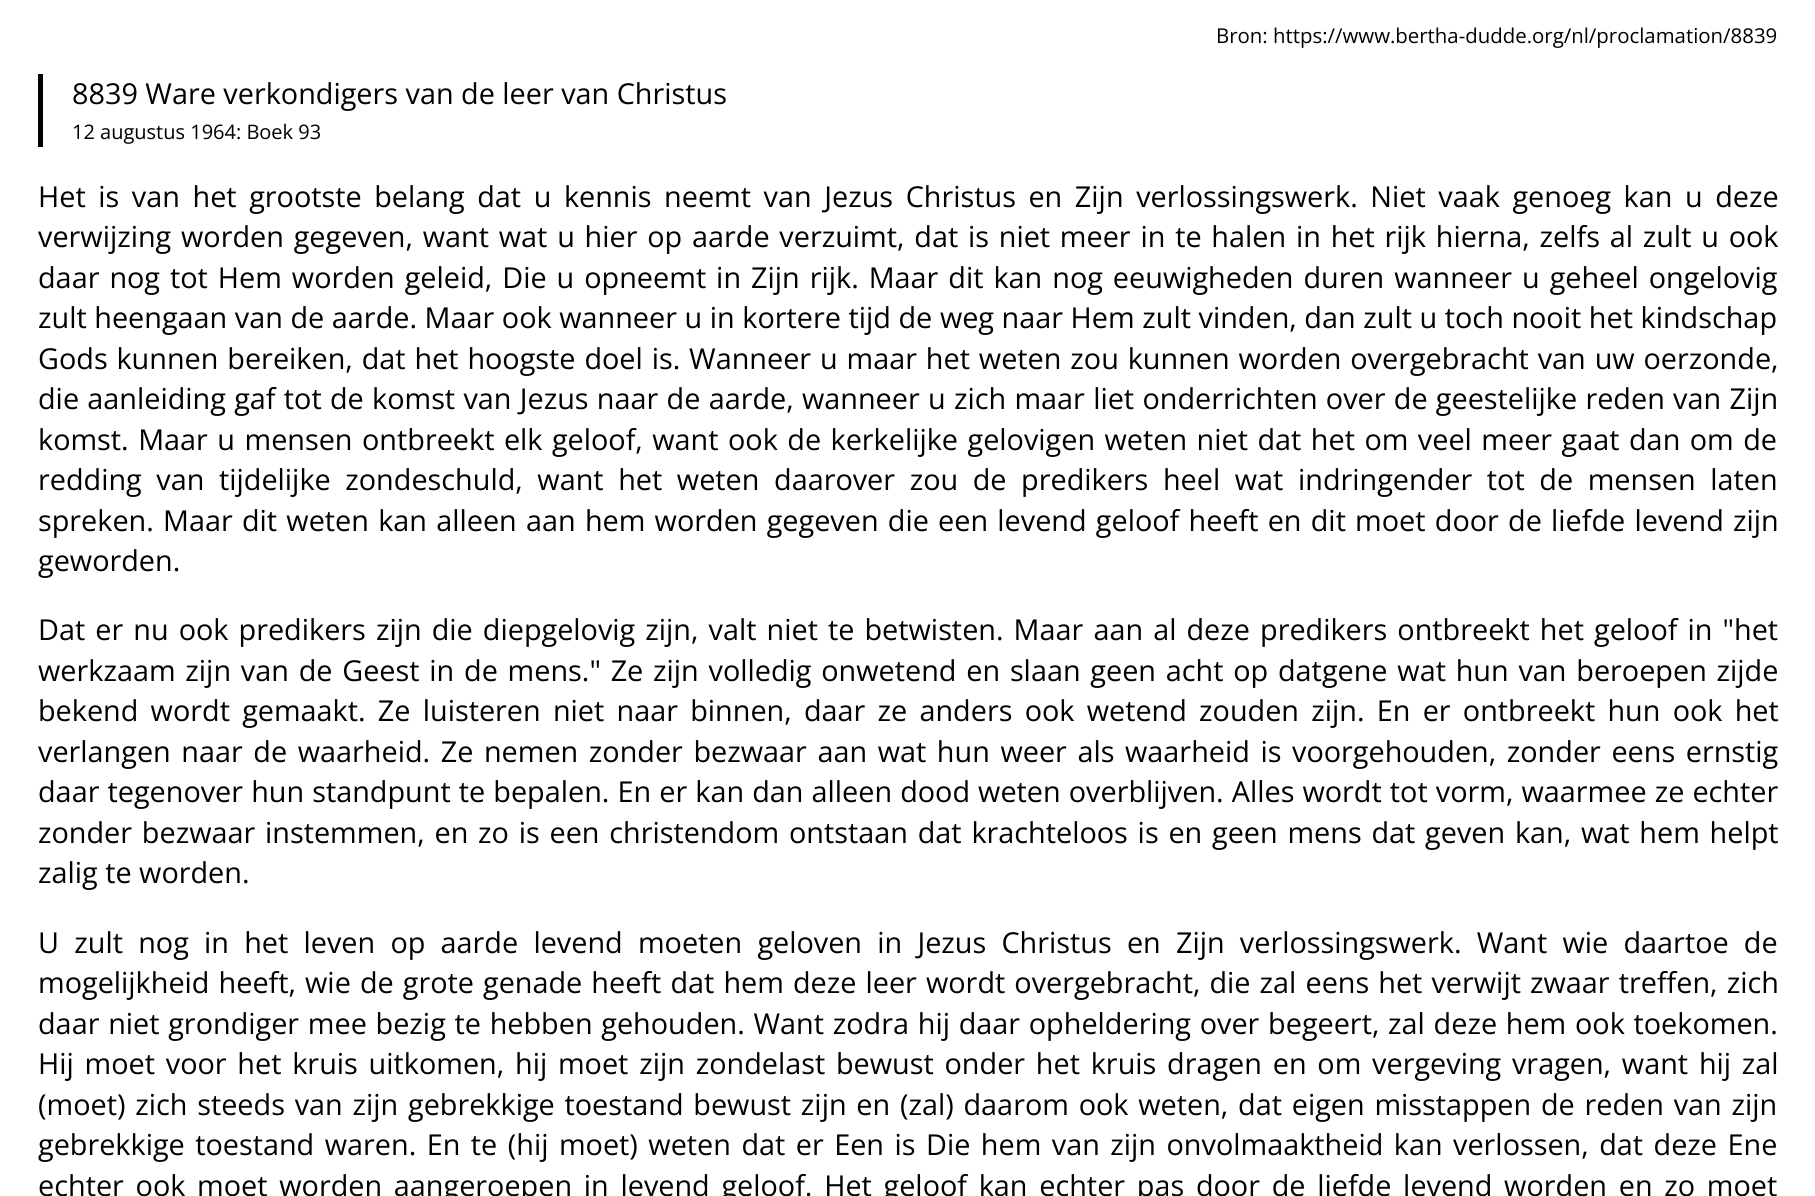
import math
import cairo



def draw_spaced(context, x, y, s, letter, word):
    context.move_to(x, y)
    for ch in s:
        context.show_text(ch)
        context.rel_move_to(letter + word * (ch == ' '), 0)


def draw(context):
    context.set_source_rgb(1, 1, 1)
    context.paint()
    context.set_source_rgb(0, 0, 0)
    context.rectangle(38, 74, 5, 73)
    context.fill()
    context.select_font_face("Open Sans")
    context.set_font_size(20.4)
    context.move_to(1216, 43)
    context.show_text("Bron: https://www.bertha-dudde.org/nl/proclamation/8839")
    context.set_font_size(28.8)
    context.move_to(72, 104)
    context.show_text("8839 Ware verkondigers van de leer van Christus")
    context.set_font_size(20)
    context.move_to(72, 139)
    context.show_text("12 augustus 1964: Boek 93")
    context.set_font_size(28.8)
    draw_spaced(context, 38, 207, "Het is van het grootste belang dat u kennis neemt van Jezus Christus en Zijn verlossingswerk. Niet vaak genoeg kan u deze", 0, 5.1)
    draw_spaced(context, 38, 247, "verwijzing worden gegeven, want wat u hier op aarde verzuimt, dat is niet meer in te halen in het rijk hierna, zelfs al zult u ook", 0, 2.3)
    draw_spaced(context, 38, 288, "daar nog tot Hem worden geleid, Die u opneemt in Zijn rijk. Maar dit kan nog eeuwigheden duren wanneer u geheel ongelovig", 0, 2.5)
    draw_spaced(context, 38, 328, "zult heengaan van de aarde. Maar ook wanneer u in kortere tijd de weg naar Hem zult vinden, dan zult u toch nooit het kindschap", 0, 0.1)
    draw_spaced(context, 38, 369, "Gods kunnen bereiken, dat het hoogste doel is. Wanneer u maar het weten zou kunnen worden overgebracht van uw oerzonde,", 0, 1.4)
    draw_spaced(context, 38, 409, "die aanleiding gaf tot de komst van Jezus naar de aarde, wanneer u zich maar liet onderrichten over de geestelijke reden van Zijn", 0, 0.8)
    draw_spaced(context, 38, 450, "komst. Maar u mensen ontbreekt elk geloof, want ook de kerkelijke gelovigen weten niet dat het om veel meer gaat dan om de", 0, 2)
    draw_spaced(context, 38, 490, "redding van tijdelijke zondeschuld, want het weten daarover zou de predikers heel wat indringender tot de mensen laten", 0, 7.1)
    draw_spaced(context, 38, 531, "spreken. Maar dit weten kan alleen aan hem worden gegeven die een levend geloof heeft en dit moet door de liefde levend zijn", 0, 1.75)
    context.move_to(38, 571)
    context.show_text("geworden.")
    draw_spaced(context, 38, 640, "Dat er nu ook predikers zijn die diepgelovig zijn, valt niet te betwisten. Maar aan al deze predikers ontbreekt het geloof in \"het", 0, 2.6)
    draw_spaced(context, 38, 681, "werkzaam zijn van de Geest in de mens.\" Ze zijn volledig onwetend en slaan geen acht op datgene wat hun van beroepen zijde", 0, 2.3)
    draw_spaced(context, 38, 721, "bekend wordt gemaakt. Ze luisteren niet naar binnen, daar ze anders ook wetend zouden zijn. En er ontbreekt hun ook het", 0, 4.75)
    draw_spaced(context, 38, 762, "verlangen naar de waarheid. Ze nemen zonder bezwaar aan wat hun weer als waarheid is voorgehouden, zonder eens ernstig", 0, 3.1)
    draw_spaced(context, 38, 802, "daar tegenover hun standpunt te bepalen. En er kan dan alleen dood weten overblijven. Alles wordt tot vorm, waarmee ze echter", 0, 0.6)
    draw_spaced(context, 38, 843, "zonder bezwaar instemmen, en zo is een christendom ontstaan dat krachteloos is en geen mens dat geven kan, wat hem helpt", 0, 2.3)
    context.move_to(38, 883)
    context.show_text("zalig te worden.")
    draw_spaced(context, 38, 953, "U zult nog in het leven op aarde levend moeten geloven in Jezus Christus en Zijn verlossingswerk. Want wie daartoe de", 0, 7.75)
    draw_spaced(context, 38, 993, "mogelijkheid heeft, wie de grote genade heeft dat hem deze leer wordt overgebracht, die zal eens het verwijt zwaar treffen, zich", 0, 1.6)
    draw_spaced(context, 38, 1034, "daar niet grondiger mee bezig te hebben gehouden. Want zodra hij daar opheldering over begeert, zal deze hem ook toekomen.", 0, 1.25)
    draw_spaced(context, 38, 1074, "Hij moet voor het kruis uitkomen, hij moet zijn zondelast bewust onder het kruis dragen en om vergeving vragen, want hij zal", 0, 3.3)
    draw_spaced(context, 38, 1115, "(moet) zich steeds van zijn gebrekkige toestand bewust zijn en (zal) daarom ook weten, dat eigen misstappen de reden van zijn", 0, 2.3)
    draw_spaced(context, 38, 1155, "gebrekkige toestand waren. En te (hij moet) weten dat er Een is Die hem van zijn onvolmaaktheid kan verlossen, dat deze Ene", 0, 3)
    draw_spaced(context, 38, 1196, "echter ook moet worden aangeroepen in levend geloof. Het geloof kan echter pas door de liefde levend worden en zo moet", 0, 4.25)


surface = cairo.ImageSurface(cairo.Format.RGB24, 1815, 1196)
context = cairo.Context(surface)
options = cairo.FontOptions()
options.set_hint_metrics(cairo.HintMetrics.OFF)
options.set_hint_style(cairo.HintStyle.NONE)
context.set_font_options(options)
context.set_miter_limit(4)
draw(context)
surface.write_to_png("out.png")
